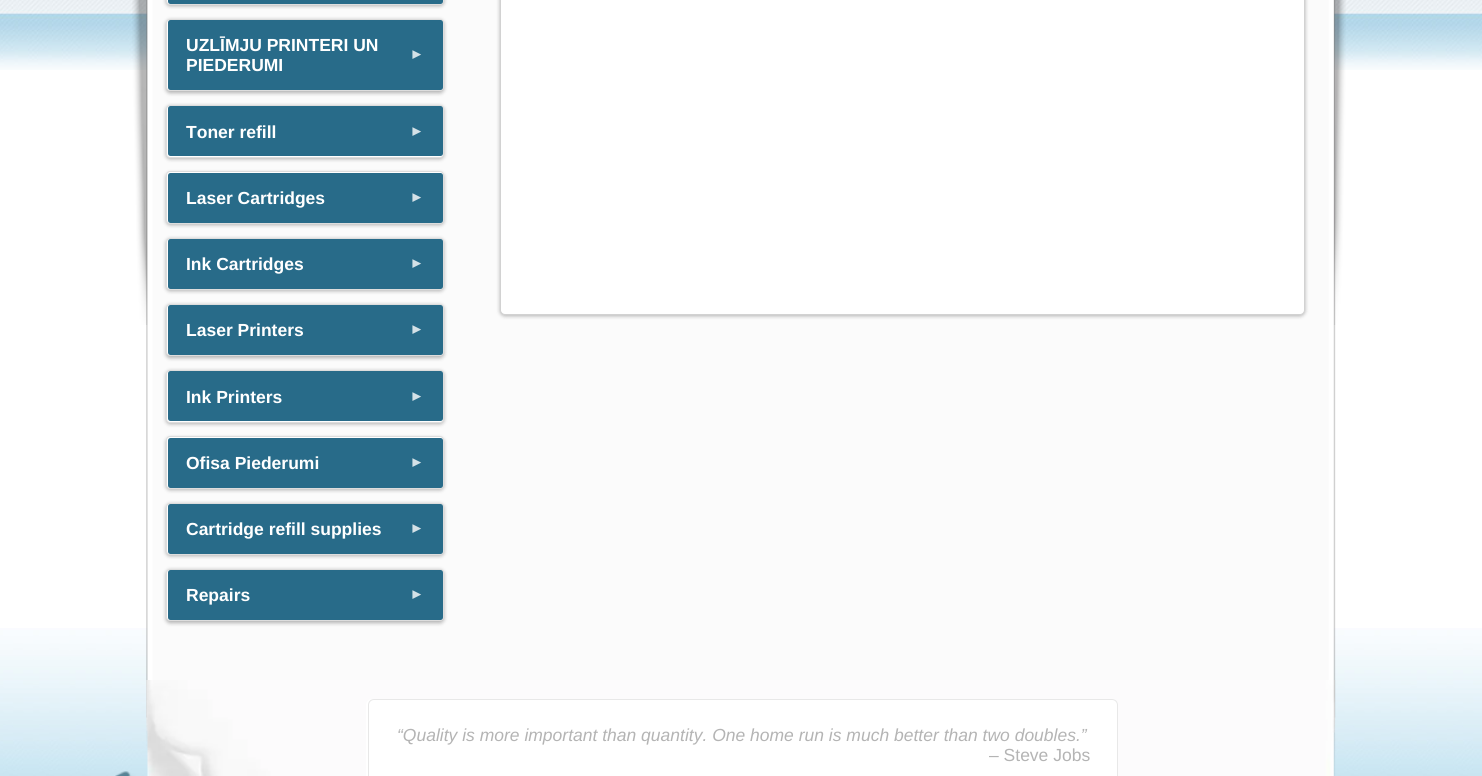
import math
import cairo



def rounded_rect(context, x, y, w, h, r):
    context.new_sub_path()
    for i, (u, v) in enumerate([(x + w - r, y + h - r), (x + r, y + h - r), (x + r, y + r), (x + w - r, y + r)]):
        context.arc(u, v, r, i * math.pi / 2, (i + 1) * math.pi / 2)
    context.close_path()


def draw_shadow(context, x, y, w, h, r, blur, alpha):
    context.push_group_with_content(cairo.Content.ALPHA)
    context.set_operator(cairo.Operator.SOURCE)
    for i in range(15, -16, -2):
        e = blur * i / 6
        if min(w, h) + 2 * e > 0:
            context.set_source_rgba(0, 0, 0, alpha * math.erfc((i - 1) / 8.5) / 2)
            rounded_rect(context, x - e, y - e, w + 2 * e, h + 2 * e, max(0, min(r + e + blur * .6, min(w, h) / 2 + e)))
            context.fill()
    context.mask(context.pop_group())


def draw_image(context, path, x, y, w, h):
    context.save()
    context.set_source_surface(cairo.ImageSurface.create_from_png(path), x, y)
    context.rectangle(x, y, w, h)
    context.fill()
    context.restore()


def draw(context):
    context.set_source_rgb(1, 1, 1)
    context.paint()
    draw_image(context, "images/1.png", 0, 628, 1482, 148)
    draw_image(context, "images/2.png", 0, 0, 1482, 70)
    draw_image(context, "images/3.png", 132, 0, 1214, 325)
    draw_image(context, "images/4.png", 146, 0, 1190, 718)
    context.set_source_rgb(0, 0, 0)
    draw_shadow(context, 166, -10, 278, 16, 4, 2, 0.3)
    context.set_source_rgb(1, 1, 1)
    rounded_rect(context, 166.5, -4.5, 277, 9, 3.5)
    context.fill_preserve()
    context.set_source_rgb(221 / 255, 221 / 255, 221 / 255)
    context.set_line_width(1)
    context.stroke()
    context.set_source_rgb(40 / 255, 107 / 255, 137 / 255)
    rounded_rect(context, 168, -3, 275, 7, 2.5)
    context.fill()
    context.set_source_rgb(0, 0, 0)
    draw_shadow(context, 166, 20, 278, 73, 4, 2, 0.3)
    context.set_source_rgb(1, 1, 1)
    rounded_rect(context, 166.5, 19.5, 277, 71, 3.5)
    context.fill_preserve()
    context.set_source_rgb(221 / 255, 221 / 255, 221 / 255)
    context.stroke()
    context.set_source_rgb(40 / 255, 107 / 255, 137 / 255)
    rounded_rect(context, 168, 20, 275, 70, 2.5)
    context.fill()
    context.set_source_rgb(0, 0, 0)
    draw_shadow(context, 166, 106, 278, 53, 4, 2, 0.3)
    context.set_source_rgb(1, 1, 1)
    rounded_rect(context, 166.5, 105.5, 277, 52, 3.5)
    context.fill_preserve()
    context.set_source_rgb(221 / 255, 221 / 255, 221 / 255)
    context.stroke()
    context.set_source_rgb(40 / 255, 107 / 255, 137 / 255)
    rounded_rect(context, 168, 106, 275, 50, 2.5)
    context.fill()
    context.set_source_rgb(0, 0, 0)
    draw_shadow(context, 166, 173, 278, 52, 4, 2, 0.3)
    context.set_source_rgb(1, 1, 1)
    rounded_rect(context, 166.5, 171.5, 277, 52, 3.5)
    context.fill_preserve()
    context.set_source_rgb(221 / 255, 221 / 255, 221 / 255)
    context.stroke()
    context.set_source_rgb(40 / 255, 107 / 255, 137 / 255)
    rounded_rect(context, 168, 173, 275, 50, 2.5)
    context.fill()
    context.set_source_rgb(0, 0, 0)
    draw_shadow(context, 166, 239, 278, 52, 4, 2, 0.3)
    context.set_source_rgb(1, 1, 1)
    rounded_rect(context, 166.5, 238.5, 277, 51, 3.5)
    context.fill_preserve()
    context.set_source_rgb(221 / 255, 221 / 255, 221 / 255)
    context.stroke()
    context.set_source_rgb(40 / 255, 107 / 255, 137 / 255)
    rounded_rect(context, 168, 239, 275, 50, 2.5)
    context.fill()
    context.set_source_rgb(0, 0, 0)
    draw_shadow(context, 166, 305, 278, 53, 4, 2, 0.3)
    context.set_source_rgb(1, 1, 1)
    rounded_rect(context, 166.5, 304.5, 277, 51, 3.5)
    context.fill_preserve()
    context.set_source_rgb(221 / 255, 221 / 255, 221 / 255)
    context.stroke()
    context.set_source_rgb(40 / 255, 107 / 255, 137 / 255)
    rounded_rect(context, 168, 305, 275, 50, 2.5)
    context.fill()
    context.set_source_rgb(0, 0, 0)
    draw_shadow(context, 166, 371, 278, 53, 4, 2, 0.3)
    context.set_source_rgb(1, 1, 1)
    rounded_rect(context, 166.5, 370.5, 277, 52, 3.5)
    context.fill_preserve()
    context.set_source_rgb(221 / 255, 221 / 255, 221 / 255)
    context.stroke()
    context.set_source_rgb(40 / 255, 107 / 255, 137 / 255)
    rounded_rect(context, 168, 371, 275, 50, 2.5)
    context.fill()
    context.set_source_rgb(0, 0, 0)
    draw_shadow(context, 166, 438, 278, 52, 4, 2, 0.3)
    context.set_source_rgb(1, 1, 1)
    rounded_rect(context, 166.5, 436.5, 277, 52, 3.5)
    context.fill_preserve()
    context.set_source_rgb(221 / 255, 221 / 255, 221 / 255)
    context.stroke()
    context.set_source_rgb(40 / 255, 107 / 255, 137 / 255)
    rounded_rect(context, 168, 438, 275, 50, 2.5)
    context.fill()
    context.set_source_rgb(0, 0, 0)
    draw_shadow(context, 166, 504, 278, 52, 4, 2, 0.3)
    context.set_source_rgb(1, 1, 1)
    rounded_rect(context, 166.5, 503.5, 277, 51, 3.5)
    context.fill_preserve()
    context.set_source_rgb(221 / 255, 221 / 255, 221 / 255)
    context.stroke()
    context.set_source_rgb(40 / 255, 107 / 255, 137 / 255)
    rounded_rect(context, 168, 504, 275, 50, 2.5)
    context.fill()
    context.set_source_rgb(0, 0, 0)
    draw_shadow(context, 166, 570, 278, 53, 4, 2, 0.3)
    context.set_source_rgb(1, 1, 1)
    rounded_rect(context, 166.5, 569.5, 277, 51, 3.5)
    context.fill_preserve()
    context.set_source_rgb(221 / 255, 221 / 255, 221 / 255)
    context.stroke()
    context.set_source_rgb(40 / 255, 107 / 255, 137 / 255)
    rounded_rect(context, 168, 570, 275, 50, 2.5)
    context.fill()
    context.set_source_rgb(0, 0, 0)
    draw_shadow(context, 500, -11, 805, 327, 5, 2, 0.3)
    context.set_source_rgb(1, 1, 1)
    rounded_rect(context, 500.5, -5.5, 804, 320, 4.5)
    context.fill_preserve()
    context.set_source_rgb(210 / 255, 210 / 255, 210 / 255)
    context.stroke()
    draw_image(context, "images/5.png", 115, 680, 1221, 96)
    context.set_source_rgb(1, 1, 1)
    rounded_rect(context, 366, 699, 752, 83, 6)
    context.fill()
    rounded_rect(context, 368.5, 699.5, 749, 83, 5.5)
    context.set_source_rgb(232 / 255, 232 / 255, 232 / 255)
    context.stroke()
    context.select_font_face("Liberation Sans", cairo.FontSlant.NORMAL, cairo.FontWeight.BOLD)
    context.set_font_size(17.5)
    context.set_source_rgb(1, 1, 1)
    context.move_to(186, 51)
    context.show_text("UZLĪMJU PRINTERI UN")
    context.set_font_size(15)
    context.set_source_rgb(212 / 255, 225 / 255, 231 / 255)
    context.save()
    context.translate(421, 62)
    context.rotate(-90 * math.pi / 180)
    context.move_to(0, 0)
    context.show_text("▼")
    context.restore()
    context.set_font_size(17.5)
    context.set_source_rgb(1, 1, 1)
    context.move_to(186, 71)
    context.show_text("PIEDERUMI")
    context.move_to(186, 138)
    context.show_text("Toner refill")
    context.set_font_size(15)
    context.set_source_rgb(212 / 255, 225 / 255, 231 / 255)
    context.save()
    context.translate(421, 139)
    context.rotate(-90 * math.pi / 180)
    context.move_to(0, 0)
    context.show_text("▼")
    context.restore()
    context.set_font_size(17.5)
    context.set_source_rgb(1, 1, 1)
    context.move_to(186, 204)
    context.show_text("Laser Cartridges")
    context.set_font_size(15)
    context.set_source_rgb(212 / 255, 225 / 255, 231 / 255)
    context.save()
    context.translate(421, 205)
    context.rotate(-90 * math.pi / 180)
    context.move_to(0, 0)
    context.show_text("▼")
    context.restore()
    context.set_font_size(17.5)
    context.set_source_rgb(1, 1, 1)
    context.move_to(186, 270)
    context.show_text("Ink Cartridges")
    context.set_font_size(15)
    context.set_source_rgb(212 / 255, 225 / 255, 231 / 255)
    context.save()
    context.translate(421, 271)
    context.rotate(-90 * math.pi / 180)
    context.move_to(0, 0)
    context.show_text("▼")
    context.restore()
    context.set_font_size(17.5)
    context.set_source_rgb(1, 1, 1)
    context.move_to(186, 336)
    context.show_text("Laser Printers")
    context.set_font_size(15)
    context.set_source_rgb(212 / 255, 225 / 255, 231 / 255)
    context.save()
    context.translate(421, 337)
    context.rotate(-90 * math.pi / 180)
    context.move_to(0, 0)
    context.show_text("▼")
    context.restore()
    context.set_font_size(17.5)
    context.set_source_rgb(1, 1, 1)
    context.move_to(186, 403)
    context.show_text("Ink Printers")
    context.set_font_size(15)
    context.set_source_rgb(212 / 255, 225 / 255, 231 / 255)
    context.save()
    context.translate(421, 404)
    context.rotate(-90 * math.pi / 180)
    context.move_to(0, 0)
    context.show_text("▼")
    context.restore()
    context.set_font_size(17.5)
    context.set_source_rgb(1, 1, 1)
    context.move_to(186, 469)
    context.show_text("Ofisa Piederumi")
    context.set_font_size(15)
    context.set_source_rgb(212 / 255, 225 / 255, 231 / 255)
    context.save()
    context.translate(421, 470)
    context.rotate(-90 * math.pi / 180)
    context.move_to(0, 0)
    context.show_text("▼")
    context.restore()
    context.set_font_size(17.5)
    context.set_source_rgb(1, 1, 1)
    context.move_to(186, 535)
    context.show_text("Cartridge refill supplies")
    context.set_font_size(15)
    context.set_source_rgb(212 / 255, 225 / 255, 231 / 255)
    context.save()
    context.translate(421, 536)
    context.rotate(-90 * math.pi / 180)
    context.move_to(0, 0)
    context.show_text("▼")
    context.restore()
    context.set_font_size(17.5)
    context.set_source_rgb(1, 1, 1)
    context.move_to(186, 601)
    context.show_text("Repairs")
    context.set_font_size(15)
    context.set_source_rgb(212 / 255, 225 / 255, 231 / 255)
    context.save()
    context.translate(421, 602)
    context.rotate(-90 * math.pi / 180)
    context.move_to(0, 0)
    context.show_text("▼")
    context.restore()
    context.select_font_face("Liberation Sans", cairo.FontSlant.ITALIC)
    context.set_font_size(17.5)
    context.set_source_rgb(180 / 255, 180 / 255, 180 / 255)
    context.move_to(397, 741)
    context.show_text("“Quality is more important than quantity. One home run is much better than two doubles.”")
    context.select_font_face("Liberation Sans")
    context.move_to(989, 761)
    context.show_text("– Steve Jobs")


surface = cairo.ImageSurface(cairo.Format.RGB24, 1482, 776)
context = cairo.Context(surface)
options = cairo.FontOptions()
options.set_hint_metrics(cairo.HintMetrics.OFF)
options.set_hint_style(cairo.HintStyle.NONE)
context.set_font_options(options)
context.set_miter_limit(4)
draw(context)
surface.write_to_png("out.png")
